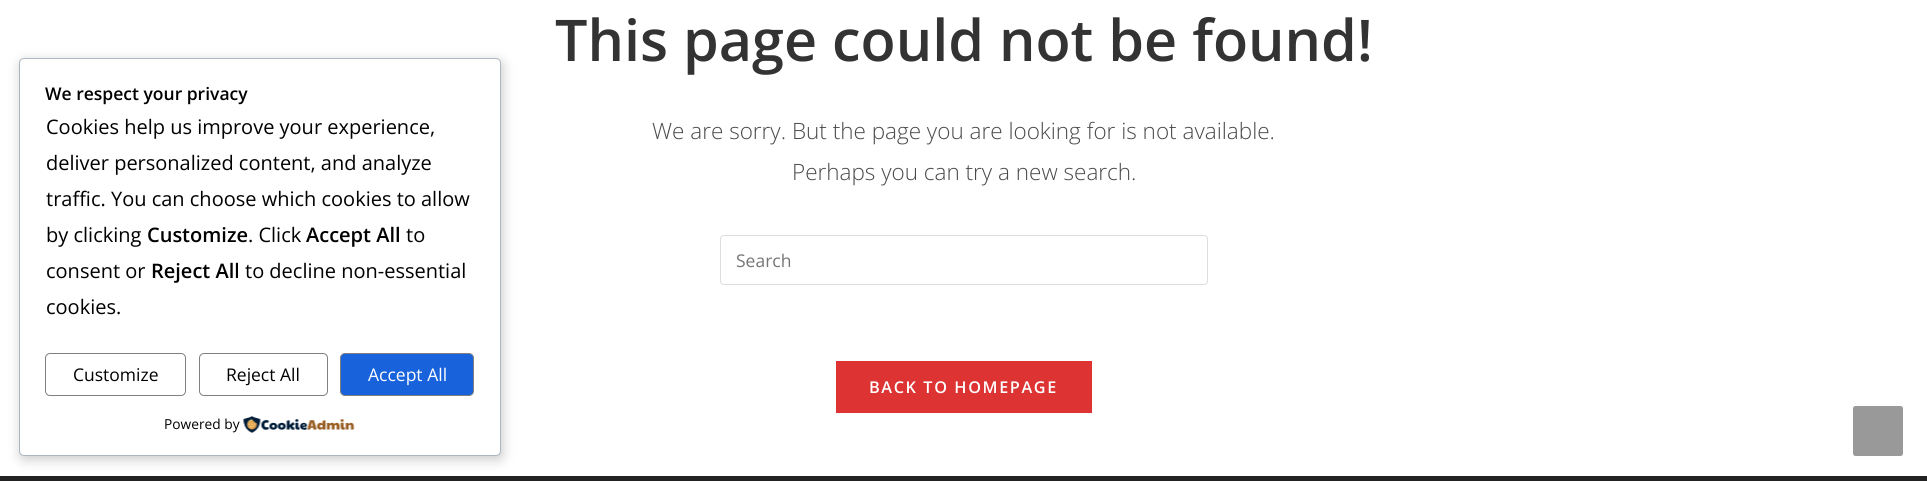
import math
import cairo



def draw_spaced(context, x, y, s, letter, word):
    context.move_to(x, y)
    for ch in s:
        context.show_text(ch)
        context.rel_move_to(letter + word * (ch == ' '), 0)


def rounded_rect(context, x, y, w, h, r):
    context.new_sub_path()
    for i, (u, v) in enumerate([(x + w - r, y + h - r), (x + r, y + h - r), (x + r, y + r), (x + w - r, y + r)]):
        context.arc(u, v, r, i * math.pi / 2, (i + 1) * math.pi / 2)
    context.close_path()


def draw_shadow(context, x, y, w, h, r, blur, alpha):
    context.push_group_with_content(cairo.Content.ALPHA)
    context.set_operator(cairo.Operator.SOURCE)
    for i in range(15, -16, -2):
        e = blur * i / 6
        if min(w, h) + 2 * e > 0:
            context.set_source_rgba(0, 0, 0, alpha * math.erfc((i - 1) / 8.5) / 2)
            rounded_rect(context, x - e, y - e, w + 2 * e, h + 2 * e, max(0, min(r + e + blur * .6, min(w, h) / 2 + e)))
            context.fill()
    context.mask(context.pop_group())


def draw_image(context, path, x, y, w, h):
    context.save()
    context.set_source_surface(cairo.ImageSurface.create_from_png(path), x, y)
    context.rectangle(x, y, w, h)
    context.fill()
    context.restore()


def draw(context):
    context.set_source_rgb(1, 1, 1)
    context.paint()
    context.set_source_rgb(34 / 255, 34 / 255, 34 / 255)
    context.rectangle(0, 476, 1927, 5)
    context.fill()
    context.set_source_rgb(0, 0, 0)
    draw_shadow(context, 20, 61, 483, 399, 5, 6, 0.2)
    context.set_source_rgb(1, 1, 1)
    rounded_rect(context, 19.5, 58.5, 481, 397, 4.5)
    context.fill_preserve()
    context.set_source_rgb(171 / 255, 184 / 255, 195 / 255)
    context.set_line_width(1)
    context.stroke()
    rounded_rect(context, 45.5, 353.5, 140, 42, 4.5)
    context.set_source_rgb(128 / 255, 128 / 255, 128 / 255)
    context.stroke()
    rounded_rect(context, 199.5, 353.5, 128, 42, 4.5)
    context.stroke()
    context.set_source_rgb(24 / 255, 99 / 255, 220 / 255)
    rounded_rect(context, 340.5, 353.5, 133, 42, 4.5)
    context.fill_preserve()
    context.set_source_rgb(128 / 255, 128 / 255, 128 / 255)
    context.stroke()
    draw_image(context, "images/1.png", 243, 416, 112, 17)
    rounded_rect(context, 720.5, 235.5, 487, 49, 3.5)
    context.set_source_rgb(221 / 255, 221 / 255, 221 / 255)
    context.stroke()
    context.set_source_rgb(221 / 255, 51 / 255, 51 / 255)
    context.rectangle(836, 361, 256, 52)
    context.fill()
    context.set_source_rgb(153 / 255, 153 / 255, 153 / 255)
    rounded_rect(context, 1853, 406, 50, 50, 2.5)
    context.fill()
    context.select_font_face("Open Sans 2 SemiBold")
    context.set_font_size(17.5)
    context.set_source_rgb(0, 0, 0)
    context.move_to(45, 100)
    context.show_text("We respect your privacy")
    context.select_font_face("Open Sans")
    context.set_font_size(20)
    context.move_to(46, 134)
    context.show_text("Cookies help us improve your experience,")
    context.move_to(46, 170)
    context.show_text("deliver personalized content, and analyze")
    context.move_to(46, 206)
    context.show_text("traffic. You can choose which cookies to allow")
    context.move_to(46, 242)
    context.show_text("by clicking")
    context.select_font_face("Open Sans SemiBold")
    context.move_to(147, 242)
    context.show_text("Customize")
    context.select_font_face("Open Sans")
    context.move_to(248, 242)
    context.show_text(". Click")
    context.select_font_face("Open Sans SemiBold")
    context.move_to(306, 242)
    context.show_text("Accept All")
    context.select_font_face("Open Sans")
    context.move_to(406, 242)
    context.show_text("to")
    context.move_to(46, 278)
    context.show_text("consent or")
    context.select_font_face("Open Sans SemiBold")
    context.move_to(151, 278)
    context.show_text("Reject All")
    context.select_font_face("Open Sans")
    context.move_to(245, 278)
    context.show_text("to decline non-essential")
    context.move_to(46, 314)
    context.show_text("cookies.")
    context.set_font_size(17.5)
    context.move_to(73, 381)
    context.show_text("Customize")
    context.move_to(226, 381)
    context.show_text("Reject All")
    context.set_source_rgb(1, 1, 1)
    context.move_to(368, 381)
    context.show_text("Accept All")
    context.set_font_size(13.75)
    context.set_source_rgb(0, 0, 0)
    context.move_to(164, 429)
    context.show_text("Powered by")
    context.select_font_face("Open Sans SemiBold")
    context.set_font_size(57.5)
    context.set_source_rgb(51 / 255, 51 / 255, 51 / 255)
    context.move_to(555, 61)
    context.show_text("This page could not be found!")
    context.select_font_face("Open Sans Light")
    context.set_font_size(22.5)
    context.set_source_rgb(74 / 255, 74 / 255, 74 / 255)
    context.move_to(652, 139)
    context.show_text("We are sorry. But the page you are looking for is not available.")
    context.move_to(792, 180)
    context.show_text("Perhaps you can try a new search.")
    context.select_font_face("Open Sans")
    context.set_font_size(17.5)
    context.set_source_rgb(117 / 255, 117 / 255, 117 / 255)
    context.move_to(736, 267)
    context.show_text("Search")
    context.select_font_face("Open Sans SemiBold")
    context.set_font_size(16.25)
    context.set_source_rgb(1, 1, 1)
    draw_spaced(context, 869, 393, "BACK TO HOMEPAGE", 1.6, 0)


surface = cairo.ImageSurface(cairo.Format.RGB24, 1927, 481)
context = cairo.Context(surface)
options = cairo.FontOptions()
options.set_hint_metrics(cairo.HintMetrics.OFF)
options.set_hint_style(cairo.HintStyle.NONE)
context.set_font_options(options)
context.set_miter_limit(4)
draw(context)
surface.write_to_png("out.png")
